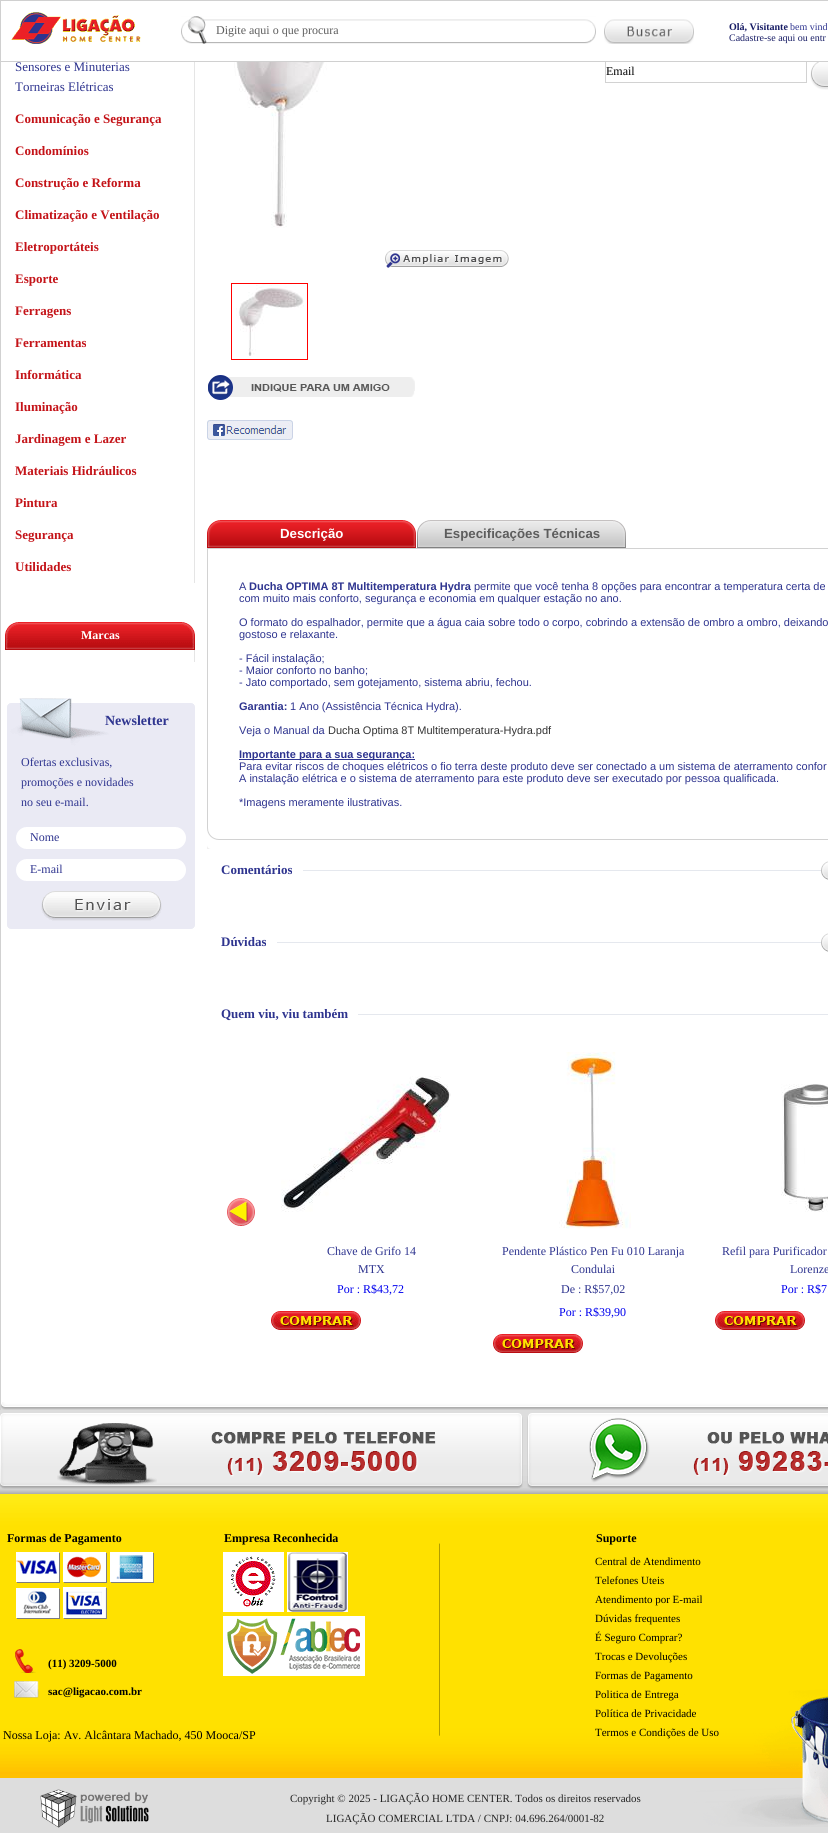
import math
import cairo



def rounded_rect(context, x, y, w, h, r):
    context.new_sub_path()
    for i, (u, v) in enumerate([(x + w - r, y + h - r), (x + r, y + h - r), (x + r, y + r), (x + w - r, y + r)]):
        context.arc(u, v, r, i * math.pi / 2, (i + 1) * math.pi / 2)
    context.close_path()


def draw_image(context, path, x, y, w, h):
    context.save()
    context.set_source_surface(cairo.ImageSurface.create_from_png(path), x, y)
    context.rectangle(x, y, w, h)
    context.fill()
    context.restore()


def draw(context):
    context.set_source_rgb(221 / 255, 221 / 255, 221 / 255)
    context.paint()
    draw_image(context, "images/1.png", 0, 1489, 828, 338)
    context.set_source_rgb(1, 1, 1)
    context.rectangle(1, 62, 827, 1340)
    context.fill()
    context.rectangle(605.5, 61.5, 201, 21)
    context.set_source_rgb(210 / 255, 210 / 255, 210 / 255)
    context.set_line_width(1)
    context.stroke()
    context.set_source_rgb(1, 1, 1)
    context.rectangle(0.5, 0.5, 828, 61)
    context.fill_preserve()
    context.set_source_rgb(208 / 255, 208 / 255, 208 / 255)
    context.stroke()
    draw_image(context, "images/2.png", 11, 12, 130, 32)
    draw_image(context, "images/3.png", 181, 16, 415, 28)
    draw_image(context, "images/4.png", 604, 19, 90, 25)
    draw_image(context, "images/5.png", 1, 1402, 827, 8)
    context.set_source_rgb(209 / 255, 209 / 255, 209 / 255)
    context.rectangle(0, 62, 1, 1348)
    context.fill()
    context.set_source_rgb(229 / 255, 229 / 255, 229 / 255)
    context.rectangle(194, 62, 1, 521)
    context.fill()
    draw_image(context, "images/6.png", 5, 622, 190, 28)
    context.rectangle(194, 650, 1, 12)
    context.fill()
    draw_image(context, "images/7.png", 7, 698, 188, 231)
    draw_image(context, "images/8.png", 16, 827, 170, 22)
    draw_image(context, "images/8.png", 16, 859, 170, 22)
    draw_image(context, "images/9.png", 41, 891, 121, 30)
    draw_image(context, "images/10.png", 234, 62, 261, 166)
    draw_image(context, "images/11.png", 385, 250, 124, 18)
    context.rectangle(231.5, 283.5, 76, 76)
    context.set_source_rgb(1, 0, 0)
    context.stroke()
    draw_image(context, "images/12.png", 236, 284, 68, 72)
    draw_image(context, "images/13.png", 208, 375, 207, 25)
    draw_image(context, "images/14.png", 207, 420, 86, 20)
    draw_image(context, "images/15.png", 810, 62, 18, 28)
    context.set_source_rgb(240 / 255, 239 / 255, 239 / 255)
    context.rectangle(207, 845, 4, 4)
    context.fill()
    context.set_source_rgb(1, 1, 1)
    rounded_rect(context, 207, 520, 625, 329, 4)
    context.fill()
    draw_image(context, "images/16.png", 207, 520, 209, 28)
    draw_image(context, "images/17.png", 417, 520, 209, 28)
    context.new_path()
    context.move_to(207.5, 548.5)
    context.line_to(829, 548.5)
    context.curve_to(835.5, 548.5, 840.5, 553.5, 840.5, 560)
    context.line_to(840.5, 828)
    context.curve_to(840.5, 834.5, 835.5, 839.5, 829, 839.5)
    context.line_to(219, 839.5)
    context.curve_to(212.5, 839.5, 207.5, 834.5, 207.5, 828)
    context.close_path()
    context.set_source_rgb(210 / 255, 210 / 255, 210 / 255)
    context.stroke()
    context.set_source_rgb(46 / 255, 52 / 255, 143 / 255)
    context.rectangle(239, 759, 176, 1)
    context.fill()
    context.set_source_rgb(229 / 255, 232 / 255, 238 / 255)
    context.rectangle(303, 870, 525, 1)
    context.fill()
    draw_image(context, "images/18.png", 821, 861, 7, 19)
    context.rectangle(277, 942, 551, 1)
    context.fill()
    draw_image(context, "images/19.png", 821, 933, 7, 19)
    context.rectangle(358, 1014, 470, 1)
    context.fill()
    draw_image(context, "images/20.png", 227, 1198, 28, 28)
    draw_image(context, "images/21.png", 281, 1076, 170, 136)
    draw_image(context, "images/22.png", 271, 1311, 90, 19)
    draw_image(context, "images/23.png", 559, 1052, 72, 177)
    draw_image(context, "images/22.png", 493, 1334, 90, 19)
    draw_image(context, "images/24.png", 781, 1084, 47, 128)
    draw_image(context, "images/22.png", 715, 1311, 90, 19)
    draw_image(context, "images/25.png", 0, 1413, 828, 76)
    draw_image(context, "images/26.png", 16, 1552, 44, 31)
    draw_image(context, "images/27.png", 63, 1552, 44, 31)
    draw_image(context, "images/28.png", 110, 1552, 44, 31)
    draw_image(context, "images/29.png", 16, 1588, 44, 31)
    draw_image(context, "images/30.png", 63, 1587, 44, 32)
    draw_image(context, "images/31.png", 223, 1552, 61, 60)
    draw_image(context, "images/32.png", 287, 1552, 61, 60)
    draw_image(context, "images/33.png", 223, 1616, 142, 60)
    draw_image(context, "images/34.png", 14, 1649, 22, 24)
    draw_image(context, "images/35.png", 14, 1681, 26, 17)
    draw_image(context, "images/36.png", 40, 1789, 109, 39)
    context.select_font_face("Liberation Serif")
    context.set_font_size(12)
    context.set_source_rgb(93 / 255, 93 / 255, 93 / 255)
    context.move_to(216, 34)
    context.show_text("Digite aqui o que procura")
    context.select_font_face("Liberation Serif", cairo.FontSlant.NORMAL, cairo.FontWeight.BOLD)
    context.set_font_size(10)
    context.set_source_rgb(22 / 255, 27 / 255, 100 / 255)
    context.move_to(729, 30)
    context.show_text("Olá, Visitante")
    context.select_font_face("Liberation Serif")
    context.set_source_rgb(46 / 255, 52 / 255, 143 / 255)
    context.move_to(790, 30)
    context.show_text("bem vind")
    context.set_source_rgb(22 / 255, 27 / 255, 100 / 255)
    context.move_to(729, 41)
    context.show_text("Cadastre-se aqui ou entr")
    context.set_font_size(13)
    context.set_source_rgb(46 / 255, 52 / 255, 143 / 255)
    context.move_to(15, 71)
    context.show_text("Sensores e Minuterias")
    context.move_to(15, 91)
    context.show_text("Torneiras Elétricas")
    context.select_font_face("Liberation Serif", cairo.FontSlant.NORMAL, cairo.FontWeight.BOLD)
    context.set_source_rgb(196 / 255, 19 / 255, 24 / 255)
    context.move_to(15, 123)
    context.show_text("Comunicação e Segurança")
    context.move_to(15, 155)
    context.show_text("Condomínios")
    context.move_to(15, 187)
    context.show_text("Construção e Reforma")
    context.move_to(15, 219)
    context.show_text("Climatização e Ventilação")
    context.move_to(15, 251)
    context.show_text("Eletroportáteis")
    context.move_to(15, 283)
    context.show_text("Esporte")
    context.move_to(15, 315)
    context.show_text("Ferragens")
    context.move_to(15, 347)
    context.show_text("Ferramentas")
    context.move_to(15, 379)
    context.show_text("Informática")
    context.move_to(15, 411)
    context.show_text("Iluminação")
    context.move_to(15, 443)
    context.show_text("Jardinagem e Lazer")
    context.move_to(15, 475)
    context.show_text("Materiais Hidráulicos")
    context.move_to(15, 507)
    context.show_text("Pintura")
    context.move_to(15, 539)
    context.show_text("Segurança")
    context.move_to(15, 571)
    context.show_text("Utilidades")
    context.set_font_size(12)
    context.set_source_rgb(1, 1, 1)
    context.move_to(81, 639)
    context.show_text("Marcas")
    context.set_font_size(14)
    context.set_source_rgb(46 / 255, 52 / 255, 143 / 255)
    context.move_to(105, 725)
    context.show_text("Newsletter")
    context.select_font_face("Liberation Serif")
    context.set_font_size(12)
    context.move_to(21, 766)
    context.show_text("Ofertas exclusivas,")
    context.move_to(21, 786)
    context.show_text("promoções e novidades")
    context.move_to(21, 806)
    context.show_text("no seu e-mail.")
    context.move_to(30, 841)
    context.show_text("Nome")
    context.move_to(30, 873)
    context.show_text("E-mail")
    context.set_source_rgb(0, 0, 0)
    context.move_to(606, 75)
    context.show_text("Email")
    context.select_font_face("Liberation Sans", cairo.FontSlant.NORMAL, cairo.FontWeight.BOLD)
    context.set_font_size(13.25)
    context.set_source_rgb(1, 1, 1)
    context.move_to(280, 538)
    context.show_text("Descrição")
    context.set_source_rgb(93 / 255, 93 / 255, 93 / 255)
    context.move_to(444, 538)
    context.show_text("Especificações Técnicas")
    context.select_font_face("Liberation Sans")
    context.set_font_size(11)
    context.set_source_rgb(46 / 255, 52 / 255, 143 / 255)
    context.move_to(239, 590)
    context.show_text("A")
    context.select_font_face("Liberation Sans", cairo.FontSlant.NORMAL, cairo.FontWeight.BOLD)
    context.move_to(249, 590)
    context.show_text("Ducha OPTIMA 8T Multitemperatura Hydra")
    context.select_font_face("Liberation Sans")
    context.move_to(474, 590)
    context.show_text("permite que você tenha 8 opções para encontrar a temperatura certa de")
    context.move_to(239, 602)
    context.show_text("com muito mais conforto, segurança e economia em qualquer estação no ano.")
    context.move_to(239, 626)
    context.show_text("O formato do espalhador, permite que a água caia sobre todo o corpo, cobrindo a extensão de ombro a ombro, deixando")
    context.move_to(239, 638)
    context.show_text("gostoso e relaxante.")
    context.move_to(239, 662)
    context.show_text("- Fácil instalação;")
    context.move_to(239, 674)
    context.show_text("- Maior conforto no banho;")
    context.move_to(239, 686)
    context.show_text("- Jato comportado, sem gotejamento, sistema abriu, fechou.")
    context.select_font_face("Liberation Sans", cairo.FontSlant.NORMAL, cairo.FontWeight.BOLD)
    context.move_to(239, 710)
    context.show_text("Garantia:")
    context.select_font_face("Liberation Sans")
    context.move_to(290, 710)
    context.show_text("1 Ano (Assistência Técnica Hydra).")
    context.move_to(239, 734)
    context.show_text("Veja o Manual da")
    context.set_source_rgb(51 / 255, 51 / 255, 51 / 255)
    context.move_to(328, 734)
    context.show_text("Ducha Optima 8T Multitemperatura-Hydra.pdf")
    context.select_font_face("Liberation Sans", cairo.FontSlant.NORMAL, cairo.FontWeight.BOLD)
    context.set_source_rgb(46 / 255, 52 / 255, 143 / 255)
    context.move_to(239, 758)
    context.show_text("Importante para a sua segurança:")
    context.select_font_face("Liberation Sans")
    context.move_to(239, 770)
    context.show_text("Para evitar riscos de choques elétricos o fio terra deste produto deve ser conectado a um sistema de aterramento confor")
    context.move_to(239, 782)
    context.show_text("A instalação elétrica e o sistema de aterramento para este produto deve ser executado por pessoa qualificada.")
    context.move_to(239, 806)
    context.show_text("*Imagens meramente ilustrativas.")
    context.select_font_face("Liberation Serif", cairo.FontSlant.NORMAL, cairo.FontWeight.BOLD)
    context.set_font_size(13)
    context.move_to(221, 874)
    context.show_text("Comentários")
    context.move_to(221, 946)
    context.show_text("Dúvidas")
    context.move_to(221, 1018)
    context.show_text("Quem viu, viu também")
    context.select_font_face("Liberation Serif")
    context.set_font_size(12)
    context.move_to(327, 1255)
    context.show_text("Chave de Grifo 14")
    context.move_to(358, 1273)
    context.show_text("MTX")
    context.set_source_rgb(0, 0, 238 / 255)
    context.move_to(337, 1293)
    context.show_text("Por : R$43,72")
    context.set_source_rgb(46 / 255, 52 / 255, 143 / 255)
    context.move_to(502, 1255)
    context.show_text("Pendente Plástico Pen Fu 010 Laranja")
    context.move_to(571, 1273)
    context.show_text("Condulai")
    context.move_to(561, 1293)
    context.show_text("De : R$57,02")
    context.set_source_rgb(0, 0, 238 / 255)
    context.move_to(559, 1316)
    context.show_text("Por : R$39,90")
    context.set_source_rgb(46 / 255, 52 / 255, 143 / 255)
    context.move_to(722, 1255)
    context.show_text("Refil para Purificador")
    context.move_to(790, 1273)
    context.show_text("Lorenze")
    context.set_source_rgb(0, 0, 238 / 255)
    context.move_to(781, 1293)
    context.show_text("Por : R$7")
    context.select_font_face("Liberation Serif", cairo.FontSlant.NORMAL, cairo.FontWeight.BOLD)
    context.set_source_rgb(0, 0, 0)
    context.move_to(7, 1542)
    context.show_text("Formas de Pagamento")
    context.move_to(224, 1542)
    context.show_text("Empresa Reconhecida")
    context.move_to(596, 1542)
    context.show_text("Suporte")
    context.select_font_face("Liberation Serif")
    context.set_font_size(11)
    context.move_to(595, 1565)
    context.show_text("Central de Atendimento")
    context.move_to(595, 1584)
    context.show_text("Telefones Uteis")
    context.move_to(595, 1603)
    context.show_text("Atendimento por E-mail")
    context.move_to(595, 1622)
    context.show_text("Dúvidas frequentes")
    context.move_to(595, 1641)
    context.show_text("É Seguro Comprar?")
    context.move_to(595, 1660)
    context.show_text("Trocas e Devoluções")
    context.move_to(595, 1679)
    context.show_text("Formas de Pagamento")
    context.move_to(595, 1698)
    context.show_text("Politica de Entrega")
    context.move_to(595, 1717)
    context.show_text("Política de Privacidade")
    context.move_to(595, 1736)
    context.show_text("Termos e Condições de Uso")
    context.select_font_face("Liberation Serif", cairo.FontSlant.NORMAL, cairo.FontWeight.BOLD)
    context.move_to(48, 1667)
    context.show_text("(11) 3209-5000")
    context.move_to(48, 1695)
    context.show_text("sac@ligacao.com.br")
    context.select_font_face("Liberation Serif")
    context.set_font_size(12)
    context.move_to(3, 1739)
    context.show_text("Nossa Loja: Av. Alcântara Machado, 450 Mooca/SP")
    context.set_font_size(11)
    context.set_source_rgb(36 / 255, 36 / 255, 36 / 255)
    context.move_to(290, 1802)
    context.show_text("Copyright © 2025 - LIGAÇÃO HOME CENTER. Todos os direitos reservados")
    context.move_to(326, 1822)
    context.show_text("LIGAÇÃO COMERCIAL LTDA / CNPJ: 04.696.264/0001-82")


surface = cairo.ImageSurface(cairo.Format.RGB24, 828, 1833)
context = cairo.Context(surface)
options = cairo.FontOptions()
options.set_hint_metrics(cairo.HintMetrics.OFF)
options.set_hint_style(cairo.HintStyle.NONE)
context.set_font_options(options)
context.set_miter_limit(4)
draw(context)
surface.write_to_png("out.png")
